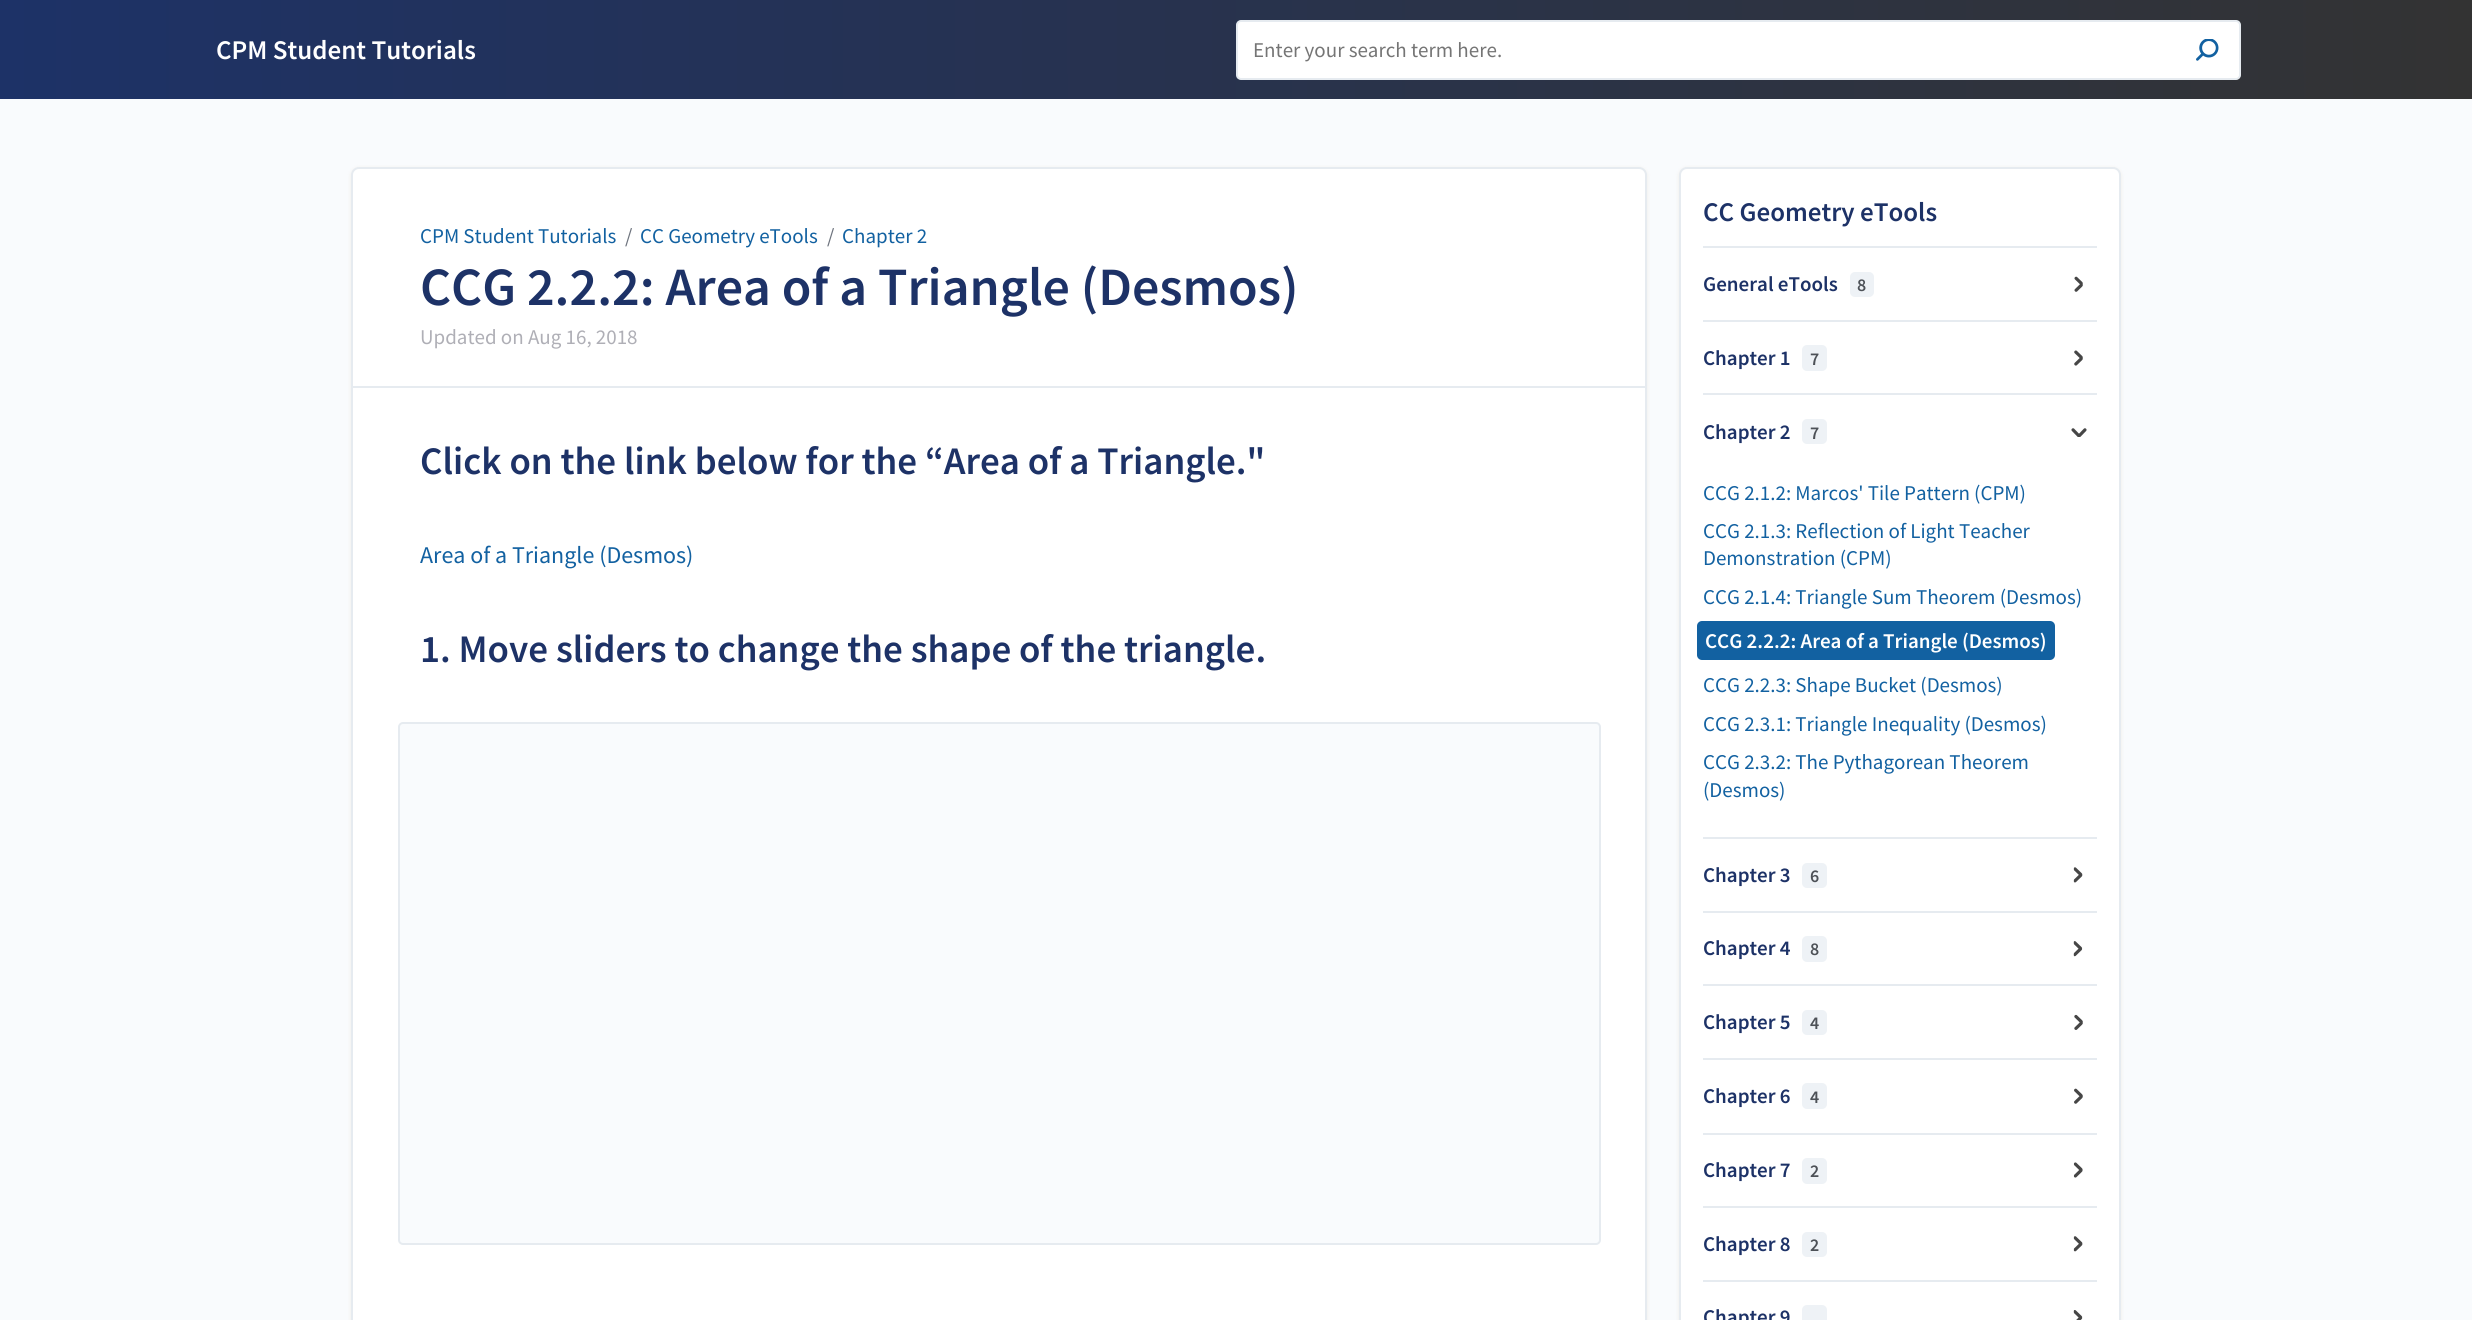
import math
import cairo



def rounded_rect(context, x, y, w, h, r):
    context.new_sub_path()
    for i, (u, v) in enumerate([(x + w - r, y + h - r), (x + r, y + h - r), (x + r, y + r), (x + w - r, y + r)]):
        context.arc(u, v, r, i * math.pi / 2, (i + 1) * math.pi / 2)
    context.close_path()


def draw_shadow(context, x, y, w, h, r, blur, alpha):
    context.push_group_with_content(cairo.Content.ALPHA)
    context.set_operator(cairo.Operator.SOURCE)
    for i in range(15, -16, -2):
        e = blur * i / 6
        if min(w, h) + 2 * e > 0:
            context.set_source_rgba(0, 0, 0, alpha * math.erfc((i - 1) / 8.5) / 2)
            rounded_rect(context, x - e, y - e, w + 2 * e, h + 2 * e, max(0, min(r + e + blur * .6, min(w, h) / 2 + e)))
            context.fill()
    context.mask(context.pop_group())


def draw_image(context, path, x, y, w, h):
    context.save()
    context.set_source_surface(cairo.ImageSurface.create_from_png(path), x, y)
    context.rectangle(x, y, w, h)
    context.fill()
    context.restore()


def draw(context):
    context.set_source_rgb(249 / 255, 251 / 255, 253 / 255)
    context.paint()
    gradient = cairo.LinearGradient(0, 50, 2472, 49)
    gradient.add_color_stop_rgba(0, 29 / 255, 50 / 255, 103 / 255, 1)
    gradient.add_color_stop_rgba(1, 51 / 255, 51 / 255, 51 / 255, 1)
    context.set_source(gradient)
    context.rectangle(0, 0, 2472, 99)
    context.fill()
    context.set_source_rgb(1, 1, 1)
    rounded_rect(context, 1237, 21, 1003, 58, 4)
    context.fill_preserve()
    context.set_source_rgb(230 / 255, 235 / 255, 240 / 255)
    context.stroke()
    draw_image(context, "images/1.png", 2196, 39, 23, 22)
    context.set_source_rgb(205 / 255, 178 / 255, 135 / 255)
    draw_shadow(context, 351, 168, 1296, 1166, 8, 2, 0.2)
    context.set_source_rgb(1, 1, 1)
    rounded_rect(context, 352, 168, 1294, 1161, 7)
    context.fill_preserve()
    context.set_source_rgb(230 / 255, 235 / 255, 240 / 255)
    context.stroke()
    context.rectangle(353, 386, 1293, 2)
    context.fill()
    context.set_source_rgb(249 / 255, 251 / 255, 253 / 255)
    rounded_rect(context, 399, 723, 1201, 521, 4)
    context.fill_preserve()
    context.set_source_rgb(230 / 255, 235 / 255, 240 / 255)
    context.stroke()
    context.set_source_rgb(205 / 255, 178 / 255, 135 / 255)
    draw_shadow(context, 1679, 168, 442, 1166, 8, 2, 0.2)
    context.set_source_rgb(1, 1, 1)
    rounded_rect(context, 1680, 168, 440, 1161, 7)
    context.fill_preserve()
    context.set_source_rgb(230 / 255, 235 / 255, 240 / 255)
    context.stroke()
    context.rectangle(1703, 246, 394, 2)
    context.fill()
    context.set_source_rgb(238 / 255, 242 / 255, 246 / 255)
    rounded_rect(context, 1850, 272, 24, 25, 5)
    context.fill()
    draw_image(context, "images/2.png", 2074, 276, 9, 16)
    context.set_source_rgb(230 / 255, 235 / 255, 240 / 255)
    context.rectangle(1703, 320, 394, 2)
    context.fill()
    context.set_source_rgb(238 / 255, 242 / 255, 246 / 255)
    rounded_rect(context, 1802, 345, 25, 26, 5)
    context.fill()
    draw_image(context, "images/3.png", 2074, 350, 9, 16)
    context.set_source_rgb(230 / 255, 235 / 255, 240 / 255)
    context.rectangle(1703, 393, 394, 2)
    context.fill()
    context.set_source_rgb(238 / 255, 242 / 255, 246 / 255)
    rounded_rect(context, 1802, 419, 25, 25, 5)
    context.fill()
    draw_image(context, "images/4.png", 2071, 428, 16, 9)
    context.set_source_rgb(18 / 255, 97 / 255, 161 / 255)
    rounded_rect(context, 1697, 621, 358, 39, 5)
    context.fill()
    context.set_source_rgb(230 / 255, 235 / 255, 240 / 255)
    context.rectangle(1703, 837, 394, 2)
    context.fill()
    context.set_source_rgb(238 / 255, 242 / 255, 246 / 255)
    rounded_rect(context, 1802, 863, 25, 25, 5)
    context.fill()
    draw_image(context, "images/5.png", 2073, 867, 10, 16)
    context.set_source_rgb(230 / 255, 235 / 255, 240 / 255)
    context.rectangle(1703, 911, 394, 2)
    context.fill()
    context.set_source_rgb(238 / 255, 242 / 255, 246 / 255)
    rounded_rect(context, 1802, 936, 25, 26, 5)
    context.fill()
    draw_image(context, "images/6.png", 2073, 941, 10, 16)
    context.set_source_rgb(230 / 255, 235 / 255, 240 / 255)
    context.rectangle(1703, 984, 394, 2)
    context.fill()
    context.set_source_rgb(238 / 255, 242 / 255, 246 / 255)
    rounded_rect(context, 1802, 1010, 25, 25, 5)
    context.fill()
    draw_image(context, "images/7.png", 2074, 1014, 9, 16)
    context.set_source_rgb(230 / 255, 235 / 255, 240 / 255)
    context.rectangle(1703, 1058, 394, 2)
    context.fill()
    context.set_source_rgb(238 / 255, 242 / 255, 246 / 255)
    rounded_rect(context, 1802, 1083, 25, 26, 5)
    context.fill()
    draw_image(context, "images/8.png", 2074, 1088, 9, 16)
    context.set_source_rgb(230 / 255, 235 / 255, 240 / 255)
    context.rectangle(1703, 1133, 394, 2)
    context.fill()
    context.set_source_rgb(238 / 255, 242 / 255, 246 / 255)
    rounded_rect(context, 1802, 1158, 25, 26, 5)
    context.fill()
    draw_image(context, "images/9.png", 2073, 1162, 10, 16)
    context.set_source_rgb(230 / 255, 235 / 255, 240 / 255)
    context.rectangle(1703, 1206, 394, 2)
    context.fill()
    context.set_source_rgb(238 / 255, 242 / 255, 246 / 255)
    rounded_rect(context, 1802, 1232, 25, 25, 5)
    context.fill()
    draw_image(context, "images/10.png", 2073, 1236, 10, 16)
    context.set_source_rgb(230 / 255, 235 / 255, 240 / 255)
    context.rectangle(1703, 1280, 394, 2)
    context.fill()
    context.set_source_rgb(238 / 255, 242 / 255, 246 / 255)
    rounded_rect(context, 1802, 1305, 25, 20, 5)
    context.fill()
    draw_image(context, "images/11.png", 2073, 1310, 10, 10)
    context.select_font_face("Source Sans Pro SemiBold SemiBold")
    context.set_font_size(27)
    context.set_source_rgb(1, 1, 1)
    context.move_to(216, 59)
    context.show_text("CPM Student Tutorials")
    context.select_font_face("Source Sans Pro")
    context.set_font_size(21)
    context.set_source_rgb(117 / 255, 117 / 255, 117 / 255)
    context.move_to(1253, 57)
    context.show_text("Enter your search term here.")
    context.set_source_rgb(18 / 255, 97 / 255, 161 / 255)
    context.move_to(420, 243)
    context.show_text("CPM Student Tutorials")
    context.set_source_rgb(110 / 255, 116 / 255, 126 / 255)
    context.move_to(625, 243)
    context.show_text("/")
    context.set_source_rgb(18 / 255, 97 / 255, 161 / 255)
    context.move_to(640, 243)
    context.show_text("CC Geometry eTools")
    context.set_source_rgb(110 / 255, 116 / 255, 126 / 255)
    context.move_to(827, 243)
    context.show_text("/")
    context.set_source_rgb(18 / 255, 97 / 255, 161 / 255)
    context.move_to(842, 243)
    context.show_text("Chapter 2")
    context.select_font_face("Source Sans Pro SemiBold SemiBold")
    context.set_font_size(54)
    context.set_source_rgb(29 / 255, 50 / 255, 103 / 255)
    context.move_to(420, 305)
    context.show_text("CCG 2.2.2: Area of a Triangle (Desmos)")
    context.select_font_face("Source Sans Pro")
    context.set_font_size(21)
    context.set_source_rgb(175 / 255, 175 / 255, 182 / 255)
    context.move_to(420, 344)
    context.show_text("Updated on Aug 16, 2018")
    context.select_font_face("Source Sans Pro SemiBold SemiBold")
    context.set_font_size(39)
    context.set_source_rgb(29 / 255, 50 / 255, 103 / 255)
    context.move_to(420, 474)
    context.show_text("Click on the link below for the “Area of a Triangle.\"")
    context.select_font_face("Source Sans Pro")
    context.set_font_size(24)
    context.set_source_rgb(18 / 255, 97 / 255, 161 / 255)
    context.move_to(420, 563)
    context.show_text("Area of a Triangle (Desmos)")
    context.select_font_face("Source Sans Pro SemiBold SemiBold")
    context.set_font_size(39)
    context.set_source_rgb(29 / 255, 50 / 255, 103 / 255)
    context.move_to(420, 662)
    context.show_text("1. Move sliders to change the shape of the triangle.")
    context.set_font_size(27)
    context.move_to(1703, 221)
    context.show_text("CC Geometry eTools")
    context.set_font_size(21)
    context.move_to(1703, 291)
    context.show_text("General eTools")
    context.set_font_size(18)
    context.set_source_rgb(77 / 255, 81 / 255, 87 / 255)
    context.move_to(1857, 291)
    context.show_text("8")
    context.set_font_size(21)
    context.set_source_rgb(29 / 255, 50 / 255, 103 / 255)
    context.move_to(1703, 365)
    context.show_text("Chapter 1")
    context.set_font_size(18)
    context.set_source_rgb(77 / 255, 81 / 255, 87 / 255)
    context.move_to(1810, 365)
    context.show_text("7")
    context.set_font_size(21)
    context.set_source_rgb(29 / 255, 50 / 255, 103 / 255)
    context.move_to(1703, 439)
    context.show_text("Chapter 2")
    context.set_font_size(18)
    context.set_source_rgb(77 / 255, 81 / 255, 87 / 255)
    context.move_to(1810, 439)
    context.show_text("7")
    context.select_font_face("Source Sans Pro")
    context.set_font_size(21)
    context.set_source_rgb(18 / 255, 97 / 255, 161 / 255)
    context.move_to(1703, 500)
    context.show_text("CCG 2.1.2: Marcos' Tile Pattern (CPM)")
    context.move_to(1703, 538)
    context.show_text("CCG 2.1.3: Reflection of Light Teacher")
    context.move_to(1703, 565)
    context.show_text("Demonstration (CPM)")
    context.move_to(1703, 604)
    context.show_text("CCG 2.1.4: Triangle Sum Theorem (Desmos)")
    context.select_font_face("Source Sans Pro SemiBold SemiBold")
    context.set_source_rgb(1, 1, 1)
    context.move_to(1705, 648)
    context.show_text("CCG 2.2.2: Area of a Triangle (Desmos)")
    context.select_font_face("Source Sans Pro")
    context.set_source_rgb(18 / 255, 97 / 255, 161 / 255)
    context.move_to(1703, 692)
    context.show_text("CCG 2.2.3: Shape Bucket (Desmos)")
    context.move_to(1703, 731)
    context.show_text("CCG 2.3.1: Triangle Inequality (Desmos)")
    context.move_to(1703, 769)
    context.show_text("CCG 2.3.2: The Pythagorean Theorem")
    context.move_to(1703, 797)
    context.show_text("(Desmos)")
    context.select_font_face("Source Sans Pro SemiBold SemiBold")
    context.set_source_rgb(29 / 255, 50 / 255, 103 / 255)
    context.move_to(1703, 882)
    context.show_text("Chapter 3")
    context.set_font_size(18)
    context.set_source_rgb(77 / 255, 81 / 255, 87 / 255)
    context.move_to(1810, 882)
    context.show_text("6")
    context.set_font_size(21)
    context.set_source_rgb(29 / 255, 50 / 255, 103 / 255)
    context.move_to(1703, 955)
    context.show_text("Chapter 4")
    context.set_font_size(18)
    context.set_source_rgb(77 / 255, 81 / 255, 87 / 255)
    context.move_to(1810, 955)
    context.show_text("8")
    context.set_font_size(21)
    context.set_source_rgb(29 / 255, 50 / 255, 103 / 255)
    context.move_to(1703, 1029)
    context.show_text("Chapter 5")
    context.set_font_size(18)
    context.set_source_rgb(77 / 255, 81 / 255, 87 / 255)
    context.move_to(1810, 1029)
    context.show_text("4")
    context.set_font_size(21)
    context.set_source_rgb(29 / 255, 50 / 255, 103 / 255)
    context.move_to(1703, 1103)
    context.show_text("Chapter 6")
    context.set_font_size(18)
    context.set_source_rgb(77 / 255, 81 / 255, 87 / 255)
    context.move_to(1810, 1103)
    context.show_text("4")
    context.set_font_size(21)
    context.set_source_rgb(29 / 255, 50 / 255, 103 / 255)
    context.move_to(1703, 1177)
    context.show_text("Chapter 7")
    context.set_font_size(18)
    context.set_source_rgb(77 / 255, 81 / 255, 87 / 255)
    context.move_to(1810, 1177)
    context.show_text("2")
    context.set_font_size(21)
    context.set_source_rgb(29 / 255, 50 / 255, 103 / 255)
    context.move_to(1703, 1251)
    context.show_text("Chapter 8")
    context.set_font_size(18)
    context.set_source_rgb(77 / 255, 81 / 255, 87 / 255)
    context.move_to(1810, 1251)
    context.show_text("2")
    context.set_font_size(21)
    context.set_source_rgb(29 / 255, 50 / 255, 103 / 255)
    context.move_to(1703, 1324)
    context.show_text("Chapter 9")


surface = cairo.ImageSurface(cairo.Format.RGB24, 2472, 1320)
context = cairo.Context(surface)
options = cairo.FontOptions()
options.set_hint_metrics(cairo.HintMetrics.OFF)
options.set_hint_style(cairo.HintStyle.NONE)
context.set_font_options(options)
context.set_miter_limit(4)
draw(context)
surface.write_to_png("out.png")
